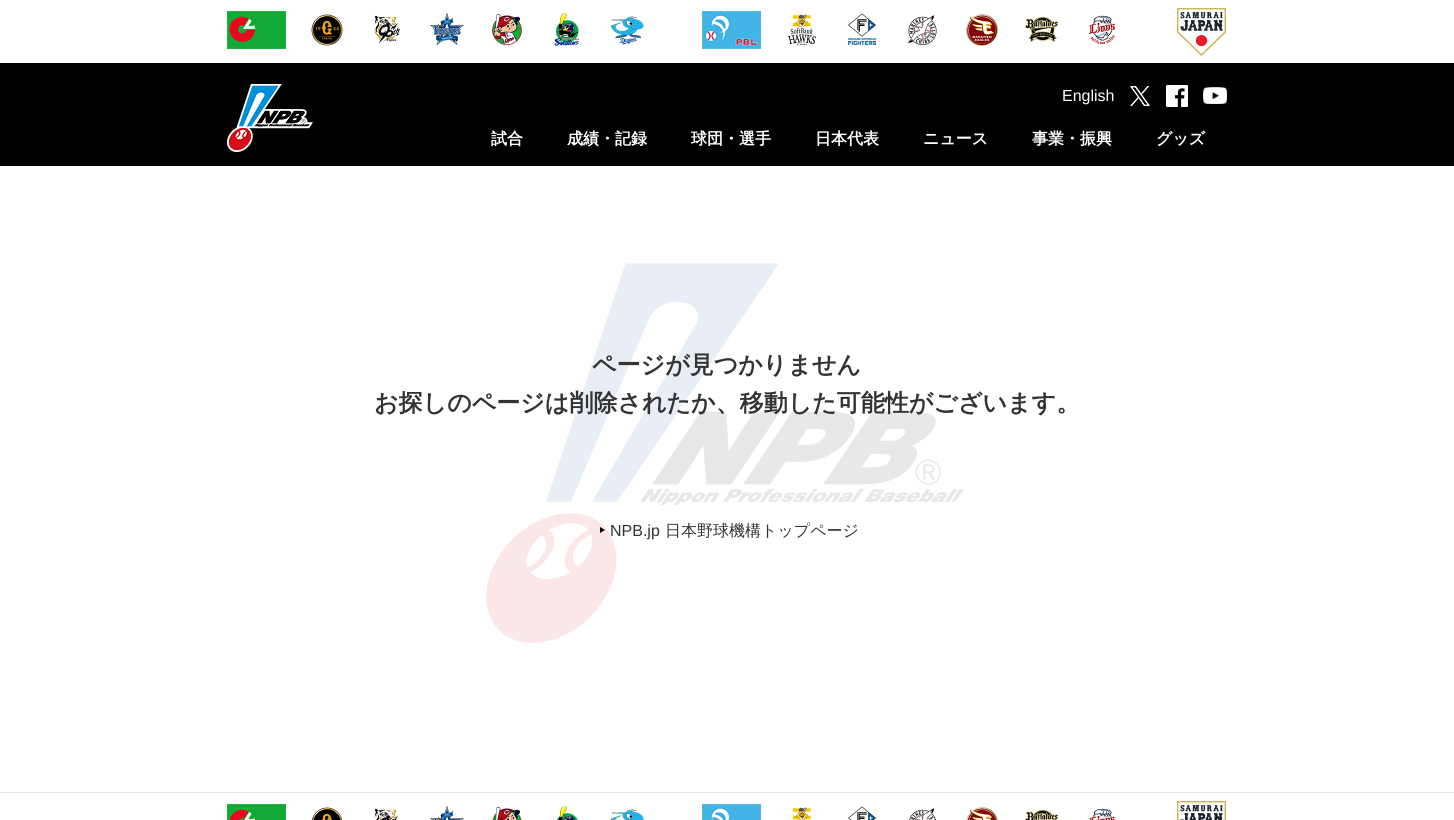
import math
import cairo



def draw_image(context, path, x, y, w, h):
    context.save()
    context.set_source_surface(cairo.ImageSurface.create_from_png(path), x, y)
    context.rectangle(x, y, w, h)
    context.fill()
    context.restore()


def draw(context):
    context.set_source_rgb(1, 1, 1)
    context.paint()
    draw_image(context, "images/1.png", 227, 11, 59, 38)
    draw_image(context, "images/2.png", 311, 14, 32, 32)
    draw_image(context, "images/3.png", 374, 15, 26, 28)
    draw_image(context, "images/4.png", 430, 13, 34, 33)
    draw_image(context, "images/5.png", 492, 14, 30, 31)
    draw_image(context, "images/6.png", 554, 13, 25, 33)
    draw_image(context, "images/7.png", 611, 16, 33, 29)
    draw_image(context, "images/8.png", 702, 11, 59, 38)
    draw_image(context, "images/9.png", 787, 14, 29, 32)
    draw_image(context, "images/10.png", 848, 13, 28, 32)
    draw_image(context, "images/11.png", 908, 15, 29, 30)
    draw_image(context, "images/12.png", 966, 14, 32, 32)
    draw_image(context, "images/13.png", 1025, 16, 34, 27)
    draw_image(context, "images/14.png", 1088, 15, 27, 30)
    draw_image(context, "images/15.png", 1177, 8, 49, 48)
    context.set_source_rgb(0, 0, 0)
    context.rectangle(0, 63, 1454, 103)
    context.fill()
    draw_image(context, "images/16.png", 227, 84, 86, 68)
    draw_image(context, "images/17.png", 1130, 86, 20, 20)
    draw_image(context, "images/18.png", 1166, 85, 22, 22)
    draw_image(context, "images/19.png", 1203, 87, 24, 17)
    draw_image(context, "images/20.png", 486, 263, 478, 380)
    draw_image(context, "images/21.png", 600, 527, 5, 6)
    context.set_source_rgb(231 / 255, 231 / 255, 231 / 255)
    context.rectangle(0, 792, 1454, 1)
    context.fill()
    draw_image(context, "images/22.png", 227, 804, 59, 16)
    draw_image(context, "images/23.png", 311, 807, 32, 13)
    draw_image(context, "images/24.png", 375, 808, 23, 12)
    draw_image(context, "images/25.png", 430, 806, 34, 14)
    draw_image(context, "images/26.png", 492, 807, 30, 13)
    draw_image(context, "images/27.png", 557, 806, 21, 14)
    draw_image(context, "images/28.png", 611, 809, 33, 11)
    draw_image(context, "images/29.png", 702, 804, 59, 16)
    draw_image(context, "images/30.png", 792, 807, 19, 13)
    draw_image(context, "images/31.png", 848, 806, 28, 14)
    draw_image(context, "images/32.png", 909, 808, 27, 12)
    draw_image(context, "images/33.png", 966, 807, 32, 13)
    draw_image(context, "images/34.png", 1025, 809, 34, 11)
    draw_image(context, "images/35.png", 1089, 808, 26, 12)
    draw_image(context, "images/36.png", 1177, 801, 49, 19)
    context.select_font_face("Liberation Sans")
    context.set_font_size(16)
    context.set_source_rgb(1, 1, 1)
    context.move_to(1062, 101)
    context.show_text("English")
    context.select_font_face("WenQuanYi Zen Hei", cairo.FontSlant.NORMAL, cairo.FontWeight.BOLD)
    context.move_to(491, 144)
    context.show_text("試合")
    context.move_to(567, 144)
    context.show_text("成績・記録")
    context.move_to(691, 144)
    context.show_text("球団・選手")
    context.move_to(815, 144)
    context.show_text("日本代表")
    context.move_to(923, 144)
    context.show_text("ニュース")
    context.move_to(1032, 144)
    context.show_text("事業・振興")
    context.move_to(1156, 144)
    context.show_text("グッズ")
    context.set_font_size(24)
    context.set_source_rgb(51 / 255, 51 / 255, 51 / 255)
    context.move_to(592, 373)
    context.show_text("ページが見つかりません")
    context.move_to(374, 411)
    context.show_text("お探しのページは削除されたか、移動した可能性がございます。")
    context.select_font_face("Liberation Sans")
    context.set_font_size(16)
    context.move_to(610, 536)
    context.show_text("NPB.jp")
    context.select_font_face("WenQuanYi Zen Hei Medium")
    context.move_to(665, 536)
    context.show_text("日本野球機構トップページ")


surface = cairo.ImageSurface(cairo.Format.RGB24, 1454, 820)
context = cairo.Context(surface)
options = cairo.FontOptions()
options.set_hint_metrics(cairo.HintMetrics.OFF)
options.set_hint_style(cairo.HintStyle.NONE)
context.set_font_options(options)
context.set_miter_limit(4)
draw(context)
surface.write_to_png("out.png")
